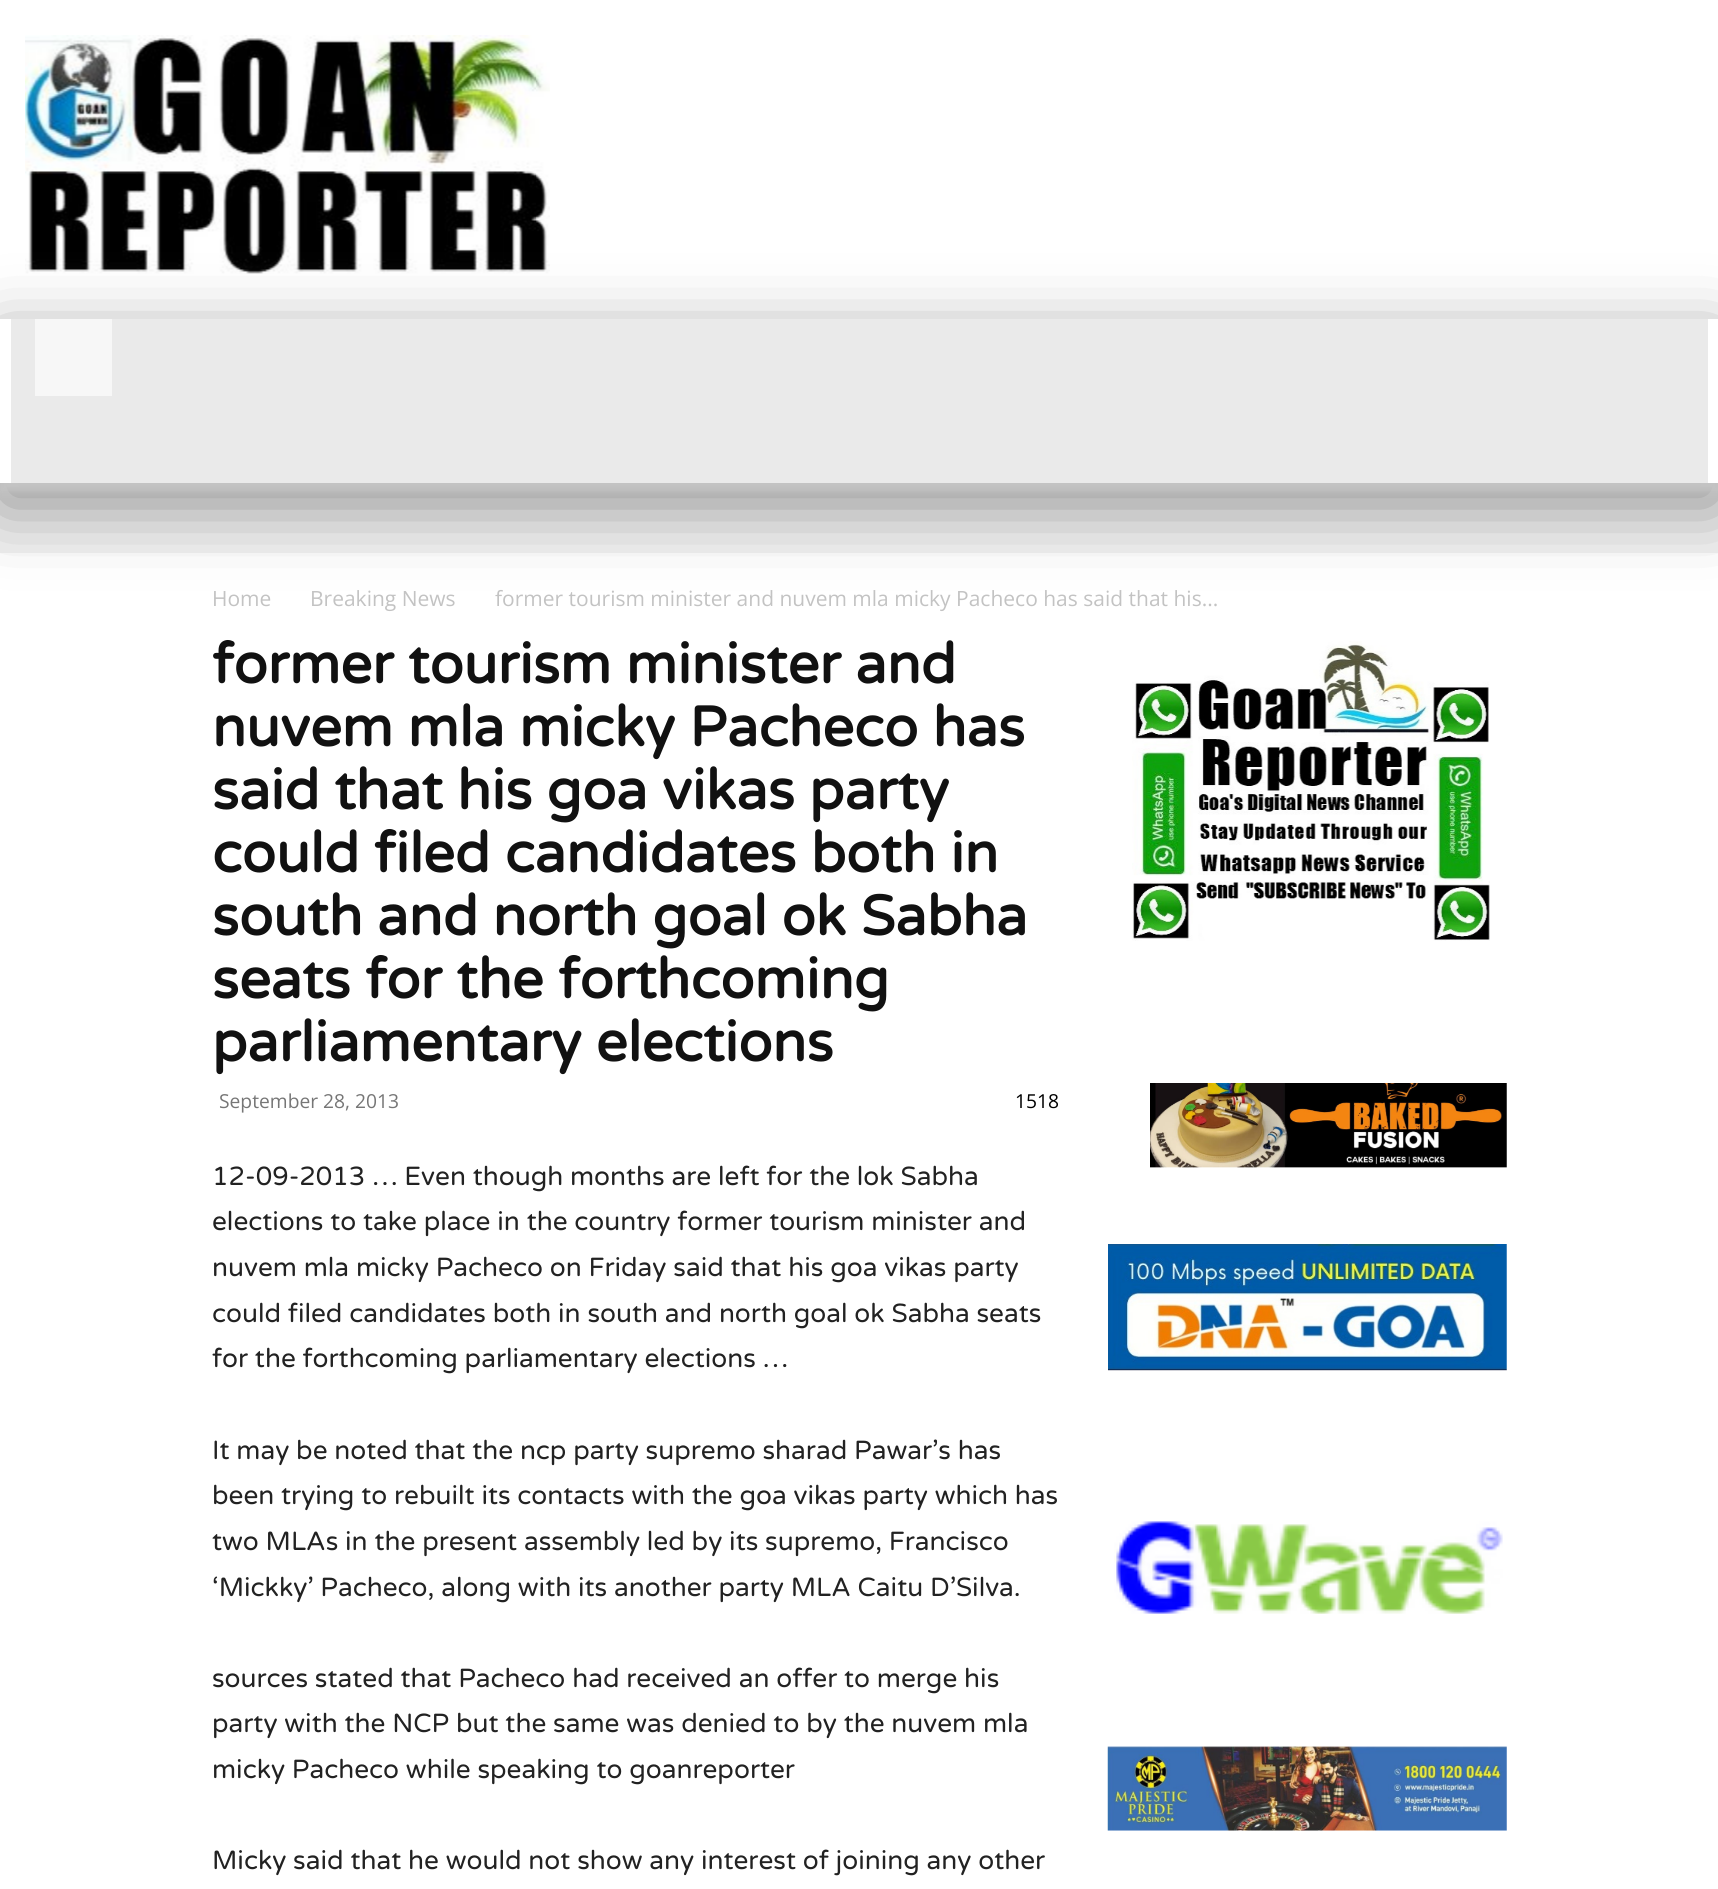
import math
import cairo



def rounded_rect(context, x, y, w, h, r):
    context.new_sub_path()
    for i, (u, v) in enumerate([(x + w - r, y + h - r), (x + r, y + h - r), (x + r, y + r), (x + w - r, y + r)]):
        context.arc(u, v, r, i * math.pi / 2, (i + 1) * math.pi / 2)
    context.close_path()


def draw_shadow(context, x, y, w, h, r, blur, alpha):
    context.push_group_with_content(cairo.Content.ALPHA)
    context.set_operator(cairo.Operator.SOURCE)
    for i in range(15, -16, -2):
        e = blur * i / 6
        if min(w, h) + 2 * e > 0:
            context.set_source_rgba(0, 0, 0, alpha * math.erfc((i - 1) / 8.5) / 2)
            rounded_rect(context, x - e, y - e, w + 2 * e, h + 2 * e, max(0, min(r + e + blur * .6, min(w, h) / 2 + e)))
            context.fill()
    context.mask(context.pop_group())


def draw_image(context, path, x, y, w, h):
    context.save()
    context.set_source_surface(cairo.ImageSurface.create_from_png(path), x, y)
    context.rectangle(x, y, w, h)
    context.fill()
    context.restore()


def draw(context):
    context.set_source_rgb(242 / 255, 242 / 255, 242 / 255)
    context.paint()
    context.set_source_rgb(1, 1, 1)
    context.rectangle(0, 0, 1718, 319)
    context.fill()
    draw_image(context, "images/1.png", 25, 35, 525, 239)
    context.rectangle(0, 553, 1718, 1336)
    context.fill()
    context.set_source_rgb(136 / 255, 136 / 255, 136 / 255)
    draw_shadow(context, 0, 340, 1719, 164, 0, 35, 1)
    context.set_source_rgb(1, 1, 1)
    context.rectangle(0, 319, 1718, 164)
    context.fill()
    context.set_source_rgb(234 / 255, 234 / 255, 234 / 255)
    context.rectangle(11, 319, 1697, 164)
    context.fill()
    context.save()
    context.rectangle(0, 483, 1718, 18)
    context.clip()
    context.set_source_rgb(196 / 255, 196 / 255, 196 / 255)
    draw_shadow(context, 0, 327, 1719, 165, 0, 4.5, 1)
    context.restore()
    context.set_source_rgb(247 / 255, 247 / 255, 247 / 255)
    context.rectangle(35, 319, 77, 77)
    context.fill()
    draw_image(context, "images/2.png", 1132, 641, 358, 300)
    draw_image(context, "images/3.png", 1150, 1083, 357, 85)
    draw_image(context, "images/4.png", 1108, 1244, 399, 127)
    draw_image(context, "images/5.png", 1114, 1521, 389, 93)
    draw_image(context, "images/6.png", 1107, 1746, 400, 85)
    context.select_font_face("Open Sans")
    context.set_font_size(21)
    context.set_source_rgb(195 / 255, 195 / 255, 195 / 255)
    context.move_to(212, 606)
    context.show_text("Home")
    context.move_to(310, 606)
    context.show_text("Breaking News")
    context.move_to(495, 606)
    context.show_text("former tourism minister and nuvem mla micky Pacheco has said that his...")
    context.select_font_face("Varela Round", cairo.FontSlant.NORMAL, cairo.FontWeight.BOLD)
    context.set_font_size(56)
    context.set_source_rgb(17 / 255, 17 / 255, 17 / 255)
    context.move_to(212, 683)
    context.show_text("former tourism minister and")
    context.move_to(212, 746)
    context.show_text("nuvem mla micky Pacheco has")
    context.move_to(212, 809)
    context.show_text("said that his goa vikas party")
    context.move_to(212, 872)
    context.show_text("could filed candidates both in")
    context.move_to(212, 935)
    context.show_text("south and north goal ok Sabha")
    context.move_to(212, 998)
    context.show_text("seats for the forthcoming")
    context.move_to(212, 1061)
    context.show_text("parliamentary elections")
    context.select_font_face("Open Sans")
    context.set_font_size(19.25)
    context.set_source_rgb(118 / 255, 118 / 255, 118 / 255)
    context.move_to(219, 1108)
    context.show_text("September 28, 2013")
    context.set_source_rgb(0, 0, 0)
    context.move_to(1015, 1108)
    context.show_text("1518")
    context.select_font_face("Varela Round")
    context.set_font_size(26.25)
    context.set_source_rgb(34 / 255, 34 / 255, 34 / 255)
    context.move_to(212, 1185)
    context.show_text("12-09-2013 … Even though months are left for the lok Sabha")
    context.move_to(212, 1230)
    context.show_text("elections to take place in the country former tourism minister and")
    context.move_to(212, 1276)
    context.show_text("nuvem mla micky Pacheco on Friday said that his goa vikas party")
    context.move_to(212, 1322)
    context.show_text("could filed candidates both in south and north goal ok Sabha seats")
    context.move_to(212, 1367)
    context.show_text("for the forthcoming parliamentary elections …")
    context.move_to(212, 1459)
    context.show_text("It may be noted that the ncp party supremo sharad Pawar’s has")
    context.move_to(212, 1504)
    context.show_text("been trying to rebuilt its contacts with the goa vikas party which has")
    context.move_to(212, 1550)
    context.show_text("two MLAs in the present assembly led by its supremo, Francisco")
    context.move_to(212, 1596)
    context.show_text("‘Mickky’ Pacheco, along with its another party MLA Caitu D’Silva.")
    context.move_to(212, 1687)
    context.show_text("sources stated that Pacheco had received an offer to merge his")
    context.move_to(212, 1732)
    context.show_text("party with the NCP but the same was denied to by the nuvem mla")
    context.move_to(212, 1778)
    context.show_text("micky Pacheco while speaking to goanreporter")
    context.move_to(212, 1869)
    context.show_text("Micky said that he would not show any interest of joining any other")


surface = cairo.ImageSurface(cairo.Format.RGB24, 1718, 1889)
context = cairo.Context(surface)
options = cairo.FontOptions()
options.set_hint_metrics(cairo.HintMetrics.OFF)
options.set_hint_style(cairo.HintStyle.NONE)
context.set_font_options(options)
context.set_miter_limit(4)
draw(context)
surface.write_to_png("out.png")
